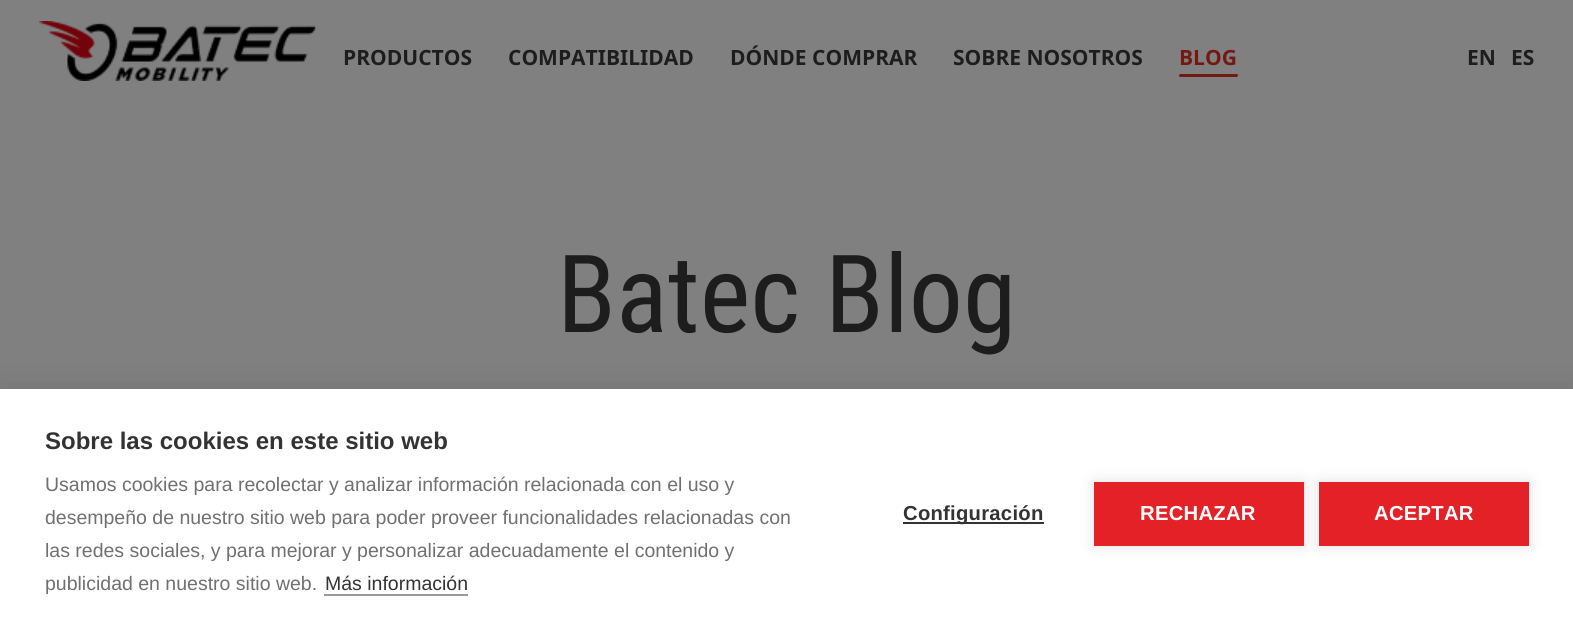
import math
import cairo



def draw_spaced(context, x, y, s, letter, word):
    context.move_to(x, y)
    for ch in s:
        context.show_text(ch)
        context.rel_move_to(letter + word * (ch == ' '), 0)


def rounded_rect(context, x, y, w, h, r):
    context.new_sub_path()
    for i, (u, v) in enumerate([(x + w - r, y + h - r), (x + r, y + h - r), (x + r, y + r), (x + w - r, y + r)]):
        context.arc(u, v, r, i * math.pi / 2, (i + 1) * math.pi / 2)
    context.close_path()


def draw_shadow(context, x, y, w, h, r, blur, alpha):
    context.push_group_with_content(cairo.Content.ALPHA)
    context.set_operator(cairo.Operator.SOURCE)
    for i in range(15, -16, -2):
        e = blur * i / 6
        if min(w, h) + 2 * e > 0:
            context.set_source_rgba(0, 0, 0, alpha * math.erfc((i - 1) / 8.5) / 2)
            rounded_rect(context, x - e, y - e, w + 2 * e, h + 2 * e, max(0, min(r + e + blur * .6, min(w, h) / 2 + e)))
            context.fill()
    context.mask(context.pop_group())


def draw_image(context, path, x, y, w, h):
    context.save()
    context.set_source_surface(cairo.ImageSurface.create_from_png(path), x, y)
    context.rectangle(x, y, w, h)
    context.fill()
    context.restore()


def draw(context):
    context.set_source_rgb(128 / 255, 128 / 255, 128 / 255)
    context.paint()
    draw_image(context, "images/1.png", 39, 21, 277, 60)
    context.set_source_rgb(115 / 255, 25 / 255, 20 / 255)
    rounded_rect(context, 1179, 74, 59, 3, 1.5)
    context.fill()
    context.set_source_rgb(0, 0, 0)
    draw_shadow(context, 0, 389, 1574, 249, 0, 15, 0.1)
    context.set_source_rgb(1, 1, 1)
    context.rectangle(0, 389, 1573, 248)
    context.fill()
    context.set_source_rgb(153 / 255, 153 / 255, 153 / 255)
    context.rectangle(324, 594, 144, 2)
    context.fill()
    context.set_source_rgb(51 / 255, 51 / 255, 51 / 255)
    context.rectangle(903, 522, 141, 2)
    context.fill()
    context.set_source_rgb(0, 0, 0)
    draw_shadow(context, 1094, 482, 210, 64, 0, 7.5, 0.12)
    context.set_source_rgb(228 / 255, 33 / 255, 39 / 255)
    context.rectangle(1094, 482, 210, 64)
    context.fill()
    context.set_source_rgb(0, 0, 0)
    draw_shadow(context, 1319, 482, 210, 64, 0, 7.5, 0.12)
    context.set_source_rgb(228 / 255, 33 / 255, 39 / 255)
    context.rectangle(1319, 482, 210, 64)
    context.fill()
    context.select_font_face("Noto Sans", cairo.FontSlant.NORMAL, cairo.FontWeight.BOLD)
    context.set_font_size(21)
    context.set_source_rgb(28 / 255, 29 / 255, 28 / 255)
    context.move_to(343, 65)
    context.show_text("PRODUCTOS")
    context.move_to(508, 65)
    context.show_text("COMPATIBILIDAD")
    context.move_to(730, 65)
    context.show_text("DÓNDE COMPRAR")
    context.move_to(953, 65)
    context.show_text("SOBRE NOSOTROS")
    context.set_source_rgb(115 / 255, 25 / 255, 20 / 255)
    context.move_to(1179, 65)
    context.show_text("BLOG")
    context.set_source_rgb(28 / 255, 29 / 255, 28 / 255)
    context.move_to(1467, 65)
    context.show_text("EN")
    context.move_to(1511, 65)
    context.show_text("ES")
    context.select_font_face("Roboto Condensed")
    context.set_font_size(108)
    context.move_to(557, 332)
    context.show_text("Batec Blog")
    context.select_font_face("Liberation Sans", cairo.FontSlant.NORMAL, cairo.FontWeight.BOLD)
    context.set_font_size(24)
    context.set_source_rgb(51 / 255, 51 / 255, 51 / 255)
    context.move_to(45, 449)
    context.show_text("Sobre las cookies en este sitio web")
    context.select_font_face("Liberation Sans")
    context.set_font_size(19.5)
    context.set_source_rgb(112 / 255, 112 / 255, 112 / 255)
    context.move_to(45, 491)
    context.show_text("Usamos cookies para recolectar y analizar información relacionada con el uso y")
    context.move_to(45, 524)
    context.show_text("desempeño de nuestro sitio web para poder proveer funcionalidades relacionadas con")
    context.move_to(45, 557)
    context.show_text("las redes sociales, y para mejorar y personalizar adecuadamente el contenido y")
    context.move_to(45, 590)
    context.show_text("publicidad en nuestro sitio web.")
    context.set_source_rgb(51 / 255, 51 / 255, 51 / 255)
    context.move_to(325, 590)
    context.show_text("Más información")
    context.select_font_face("Liberation Sans", cairo.FontSlant.NORMAL, cairo.FontWeight.BOLD)
    context.set_font_size(20.25)
    draw_spaced(context, 903, 520, "Configuración", 0.25, 0)
    context.set_source_rgb(1, 1, 1)
    draw_spaced(context, 1140, 520, "RECHAZAR", 0.25, 0)
    draw_spaced(context, 1374, 520, "ACEPTAR", 0.25, 0)


surface = cairo.ImageSurface(cairo.Format.RGB24, 1573, 637)
context = cairo.Context(surface)
options = cairo.FontOptions()
options.set_hint_metrics(cairo.HintMetrics.OFF)
options.set_hint_style(cairo.HintStyle.NONE)
context.set_font_options(options)
context.set_miter_limit(4)
draw(context)
surface.write_to_png("out.png")
